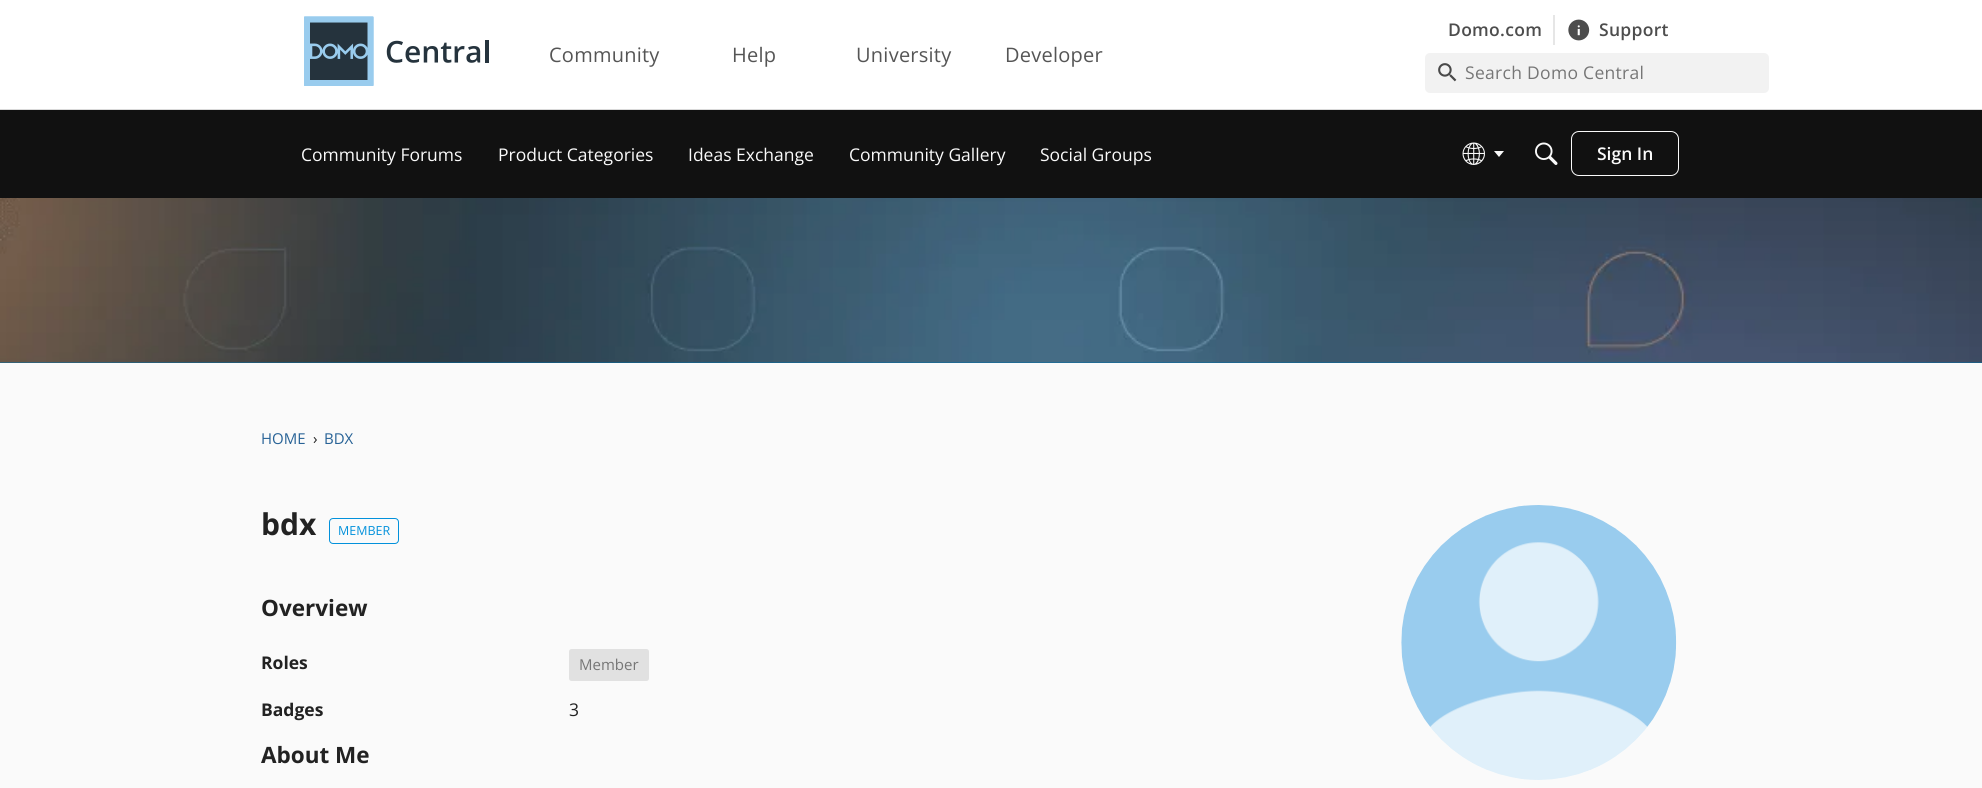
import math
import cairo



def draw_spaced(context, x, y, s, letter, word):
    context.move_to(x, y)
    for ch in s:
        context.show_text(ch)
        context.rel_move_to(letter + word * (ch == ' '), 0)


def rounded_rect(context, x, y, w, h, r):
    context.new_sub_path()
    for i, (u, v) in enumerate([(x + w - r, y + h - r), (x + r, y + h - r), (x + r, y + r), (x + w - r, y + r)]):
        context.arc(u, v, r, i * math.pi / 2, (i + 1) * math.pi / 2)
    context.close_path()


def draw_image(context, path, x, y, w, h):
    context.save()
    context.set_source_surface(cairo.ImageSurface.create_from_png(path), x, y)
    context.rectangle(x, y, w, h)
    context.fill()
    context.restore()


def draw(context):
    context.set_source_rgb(250 / 255, 250 / 255, 250 / 255)
    context.paint()
    context.set_source_rgb(1, 1, 1)
    context.rectangle(0, 0, 1982, 109)
    context.fill()
    context.set_source_rgb(217 / 255, 217 / 255, 217 / 255)
    context.rectangle(0, 109, 1982, 1)
    context.fill()
    draw_image(context, "images/1.png", 304, 16, 185, 70)
    context.set_source_rgb(230 / 255, 230 / 255, 230 / 255)
    context.rectangle(1553, 15, 2, 30)
    context.fill()
    draw_image(context, "images/2.png", 1568, 19, 22, 22)
    context.set_source_rgb(242 / 255, 242 / 255, 242 / 255)
    rounded_rect(context, 1425, 53, 344, 40, 5)
    context.fill()
    draw_image(context, "images/3.png", 1438, 63, 19, 19)
    context.set_source_rgb(17 / 255, 17 / 255, 17 / 255)
    context.rectangle(0, 110, 1982, 88)
    context.fill()
    draw_image(context, "images/4.png", 1462, 142, 23, 23)
    context.set_source_rgb(250 / 255, 250 / 255, 250 / 255)
    context.new_path()
    context.move_to(1494, 151)
    context.line_to(1504, 151)
    context.line_to(1499, 157)
    context.close_path()
    context.fill()
    draw_image(context, "images/5.png", 1535, 142, 23, 23)
    rounded_rect(context, 1571.5, 131.5, 107, 44, 7.5)
    context.set_line_width(1)
    context.stroke()
    context.set_source_rgb(3 / 255, 108 / 255, 163 / 255)
    context.rectangle(0, 362, 1982, 1)
    context.fill()
    draw_image(context, "images/6.png", 0, 198, 1982, 165)
    rounded_rect(context, 329.5, 518.5, 69, 25, 3.5)
    context.set_source_rgb(2 / 255, 145 / 255, 219 / 255)
    context.stroke()
    context.set_source_rgb(225 / 255, 225 / 255, 225 / 255)
    rounded_rect(context, 569, 649, 80, 32, 2.5)
    context.fill()
    draw_image(context, "images/7.png", 1401, 505, 276, 275)
    context.select_font_face("Open Sans SemiBold")
    context.set_font_size(17.5)
    context.set_source_rgb(77 / 255, 77 / 255, 77 / 255)
    draw_spaced(context, 1448, 36, "Domo.com", 0.3, 0)
    draw_spaced(context, 1599, 36, "Support", 0.3, 0)
    context.select_font_face("Open Sans")
    context.set_font_size(20)
    context.set_source_rgb(85 / 255, 85 / 255, 85 / 255)
    draw_spaced(context, 549, 62, "Community", 0.25, 0)
    draw_spaced(context, 732, 62, "Help", 0.25, 0)
    draw_spaced(context, 856, 62, "University", 0.25, 0)
    draw_spaced(context, 1005, 62, "Developer", 0.25, 0)
    context.set_font_size(17.5)
    context.set_source_rgb(118 / 255, 118 / 255, 118 / 255)
    draw_spaced(context, 1465, 79, "Search Domo Central", 0.3, 0)
    context.set_source_rgb(250 / 255, 250 / 255, 250 / 255)
    context.move_to(301, 161)
    context.show_text("Community Forums")
    context.move_to(498, 161)
    context.show_text("Product Categories")
    context.move_to(688, 161)
    context.show_text("Ideas Exchange")
    context.move_to(849, 161)
    context.show_text("Community Gallery")
    context.move_to(1040, 161)
    context.show_text("Social Groups")
    context.select_font_face("Open Sans SemiBold")
    context.move_to(1597, 160)
    context.show_text("Sign In")
    context.select_font_face("Open Sans")
    context.set_font_size(15)
    context.set_source_rgb(39 / 255, 98 / 255, 150 / 255)
    context.move_to(261, 444)
    context.show_text("HOME")
    context.set_source_rgb(34 / 255, 34 / 255, 34 / 255)
    context.move_to(313, 444)
    context.show_text("›")
    context.set_source_rgb(39 / 255, 98 / 255, 150 / 255)
    context.move_to(324, 444)
    context.show_text("BDX")
    context.select_font_face("Open Sans", cairo.FontSlant.NORMAL, cairo.FontWeight.BOLD)
    context.set_font_size(30)
    context.set_source_rgb(34 / 255, 34 / 255, 34 / 255)
    context.move_to(261, 535)
    context.show_text("bdx")
    context.select_font_face("Open Sans")
    context.set_font_size(12.5)
    context.set_source_rgb(2 / 255, 145 / 255, 219 / 255)
    context.move_to(338, 535)
    context.show_text("MEMBER")
    context.select_font_face("Open Sans", cairo.FontSlant.NORMAL, cairo.FontWeight.BOLD)
    context.set_font_size(22.5)
    context.set_source_rgb(34 / 255, 34 / 255, 34 / 255)
    context.move_to(261, 616)
    context.show_text("Overview")
    context.set_font_size(17.5)
    context.move_to(261, 669)
    context.show_text("Roles")
    context.select_font_face("Open Sans")
    context.set_font_size(15)
    context.set_source_rgb(118 / 255, 118 / 255, 118 / 255)
    context.move_to(579, 670)
    context.show_text("Member")
    context.select_font_face("Open Sans", cairo.FontSlant.NORMAL, cairo.FontWeight.BOLD)
    context.set_font_size(17.5)
    context.set_source_rgb(34 / 255, 34 / 255, 34 / 255)
    context.move_to(261, 716)
    context.show_text("Badges")
    context.select_font_face("Open Sans")
    context.move_to(569, 716)
    context.show_text("3")
    context.select_font_face("Open Sans", cairo.FontSlant.NORMAL, cairo.FontWeight.BOLD)
    context.set_font_size(22.5)
    context.move_to(261, 763)
    context.show_text("About Me")


surface = cairo.ImageSurface(cairo.Format.RGB24, 1982, 788)
context = cairo.Context(surface)
options = cairo.FontOptions()
options.set_hint_metrics(cairo.HintMetrics.OFF)
options.set_hint_style(cairo.HintStyle.NONE)
context.set_font_options(options)
context.set_miter_limit(4)
draw(context)
surface.write_to_png("out.png")
